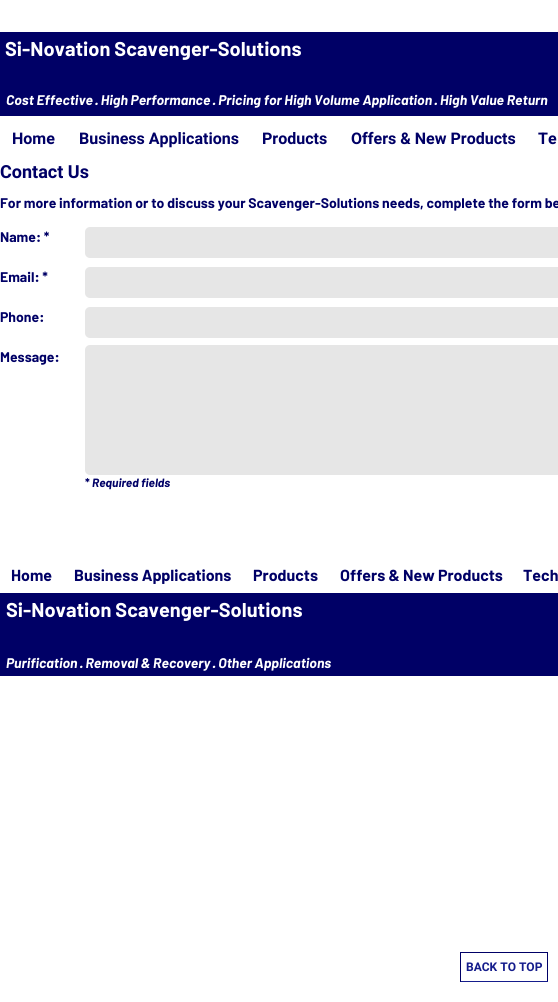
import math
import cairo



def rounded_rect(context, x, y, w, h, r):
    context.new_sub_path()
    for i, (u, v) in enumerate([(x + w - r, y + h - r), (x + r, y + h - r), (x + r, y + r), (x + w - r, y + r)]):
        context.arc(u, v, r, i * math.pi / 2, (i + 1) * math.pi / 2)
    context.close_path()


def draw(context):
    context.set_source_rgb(1, 1, 1)
    context.paint()
    context.set_source_rgb(0, 0, 102 / 255)
    context.rectangle(0, 32, 558, 84)
    context.fill()
    context.set_source_rgb(230 / 255, 230 / 255, 230 / 255)
    rounded_rect(context, 85, 227, 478, 31, 5)
    context.fill()
    rounded_rect(context, 85, 267, 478, 31, 5)
    context.fill()
    rounded_rect(context, 85, 307, 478, 31, 5)
    context.fill()
    rounded_rect(context, 85, 345, 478, 130, 5)
    context.fill()
    context.set_source_rgb(0, 0, 102 / 255)
    context.rectangle(0, 593, 558, 83)
    context.fill()
    context.rectangle(460, 952, 88, 1)
    context.fill()
    context.rectangle(547, 952, 1, 30)
    context.fill()
    context.set_source_rgb(21 / 255, 29 / 255, 140 / 255)
    context.rectangle(460, 981, 88, 1)
    context.fill()
    context.set_source_rgb(0, 0, 102 / 255)
    context.rectangle(460, 952, 1, 30)
    context.fill()
    context.select_font_face("Barlow", cairo.FontSlant.NORMAL, cairo.FontWeight.BOLD)
    context.set_font_size(20)
    context.set_source_rgb(1, 1, 1)
    context.move_to(5, 56)
    context.show_text("Si-Novation Scavenger-Solutions")
    context.select_font_face("Barlow", cairo.FontSlant.ITALIC, cairo.FontWeight.BOLD)
    context.set_font_size(14)
    context.move_to(6, 105)
    context.show_text("Cost Effective · High Performance · Pricing for High Volume Application · High Value Return")
    context.select_font_face("Heebo", cairo.FontSlant.NORMAL, cairo.FontWeight.BOLD)
    context.set_font_size(16)
    context.set_source_rgb(0, 0, 102 / 255)
    context.move_to(12, 144)
    context.show_text("Home")
    context.move_to(79, 144)
    context.show_text("Business Applications")
    context.move_to(262, 144)
    context.show_text("Products")
    context.move_to(351, 144)
    context.show_text("Offers & New Products")
    context.move_to(538, 144)
    context.show_text("Te")
    context.set_font_size(18)
    context.move_to(0, 178)
    context.show_text("Contact Us")
    context.select_font_face("Barlow", cairo.FontSlant.NORMAL, cairo.FontWeight.BOLD)
    context.set_font_size(14)
    context.move_to(0, 208)
    context.show_text("For more information or to discuss your Scavenger-Solutions needs, complete the form be")
    context.move_to(0, 242)
    context.show_text("Name: *")
    context.move_to(0, 282)
    context.show_text("Email: *")
    context.move_to(0, 322)
    context.show_text("Phone:")
    context.move_to(0, 362)
    context.show_text("Message:")
    context.set_font_size(12)
    context.move_to(85, 487)
    context.show_text("*")
    context.select_font_face("Barlow", cairo.FontSlant.ITALIC, cairo.FontWeight.BOLD)
    context.move_to(92, 487)
    context.show_text("Required fields")
    context.select_font_face("Barlow", cairo.FontSlant.NORMAL, cairo.FontWeight.BOLD)
    context.set_font_size(16)
    context.move_to(11, 581)
    context.show_text("Home")
    context.move_to(74, 581)
    context.show_text("Business Applications")
    context.move_to(253, 581)
    context.show_text("Products")
    context.move_to(340, 581)
    context.show_text("Offers & New Products")
    context.move_to(523, 581)
    context.show_text("Tech")
    context.set_font_size(20)
    context.set_source_rgb(1, 1, 1)
    context.move_to(6, 617)
    context.show_text("Si-Novation Scavenger-Solutions")
    context.select_font_face("Barlow", cairo.FontSlant.ITALIC, cairo.FontWeight.BOLD)
    context.set_font_size(14)
    context.move_to(6, 668)
    context.show_text("Purification · Removal & Recovery · Other Applications")
    context.select_font_face("Heebo", cairo.FontSlant.NORMAL, cairo.FontWeight.BOLD)
    context.set_font_size(12)
    context.set_source_rgb(21 / 255, 29 / 255, 140 / 255)
    context.move_to(466, 971)
    context.show_text("BACK TO TOP")


surface = cairo.ImageSurface(cairo.Format.RGB24, 558, 1002)
context = cairo.Context(surface)
options = cairo.FontOptions()
options.set_hint_metrics(cairo.HintMetrics.OFF)
options.set_hint_style(cairo.HintStyle.NONE)
context.set_font_options(options)
context.set_miter_limit(4)
draw(context)
surface.write_to_png("out.png")
